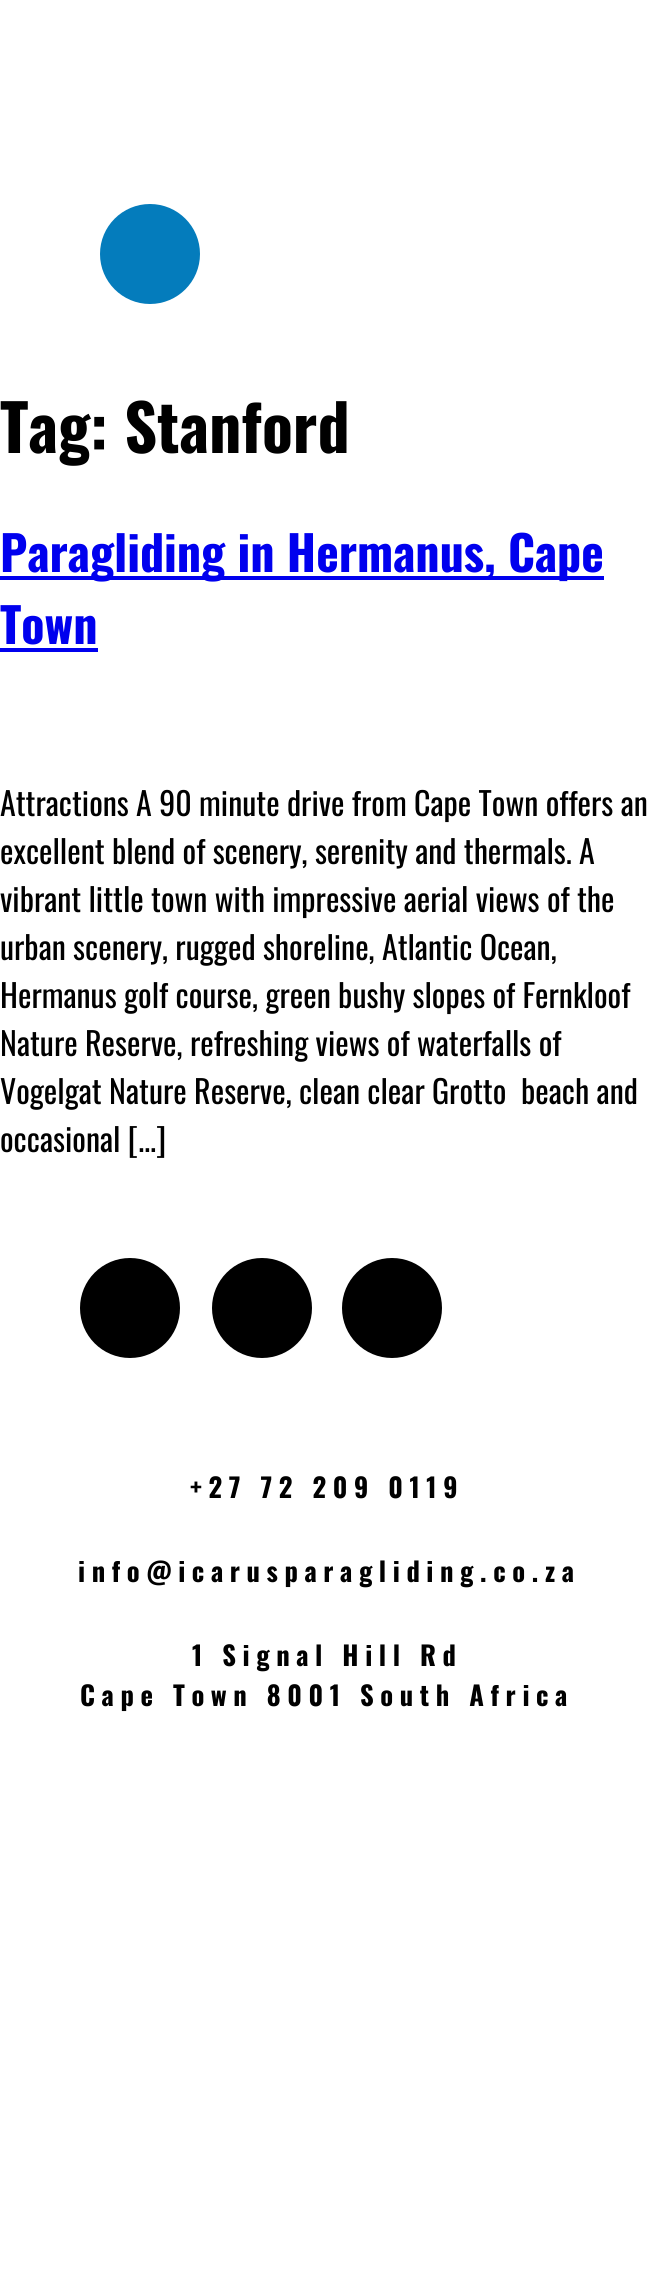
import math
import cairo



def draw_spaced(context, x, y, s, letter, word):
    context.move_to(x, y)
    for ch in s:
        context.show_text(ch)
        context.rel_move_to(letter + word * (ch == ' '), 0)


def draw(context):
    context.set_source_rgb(1, 1, 1)
    context.paint()
    context.set_source_rgb(4 / 255, 124 / 255, 188 / 255)
    context.arc(150, 254, 50, 0, 2 * math.pi)
    context.fill()
    context.set_source_rgb(0, 0, 238 / 255)
    context.rectangle(0, 576, 604, 4)
    context.fill()
    context.rectangle(0, 648, 98, 4)
    context.fill()
    context.set_source_rgb(0, 0, 0)
    context.arc(130, 1308, 50, 0, 2 * math.pi)
    context.fill()
    context.arc(262, 1308, 50, 0, 2 * math.pi)
    context.fill()
    context.arc(392, 1308, 50, 0, 2 * math.pi)
    context.fill()
    context.select_font_face("Oswald", cairo.FontSlant.NORMAL, cairo.FontWeight.BOLD)
    context.set_font_size(64)
    context.move_to(0, 453)
    context.show_text("Tag: Stanford")
    context.set_font_size(48)
    context.set_source_rgb(0, 0, 238 / 255)
    context.move_to(0, 572)
    context.show_text("Paragliding in Hermanus, Cape")
    context.move_to(0, 644)
    context.show_text("Town")
    context.select_font_face("Oswald")
    context.set_font_size(32)
    context.set_source_rgb(0, 0, 0)
    context.move_to(0, 816)
    context.show_text("Attractions A 90 minute drive from Cape Town offers an")
    context.move_to(0, 864)
    context.show_text("excellent blend of scenery, serenity and thermals. A")
    context.move_to(0, 912)
    context.show_text("vibrant little town with impressive aerial views of the")
    context.move_to(0, 960)
    context.show_text("urban scenery, rugged shoreline, Atlantic Ocean,")
    context.move_to(0, 1008)
    context.show_text("Hermanus golf course, green bushy slopes of Fernkloof")
    context.move_to(0, 1056)
    context.show_text("Nature Reserve, refreshing views of waterfalls of")
    context.move_to(0, 1104)
    context.show_text("Vogelgat Nature Reserve, clean clear Grotto  beach and")
    context.move_to(0, 1152)
    context.show_text("occasional […]")
    context.select_font_face("Oswald", cairo.FontSlant.NORMAL, cairo.FontWeight.BOLD)
    context.set_font_size(26.6)
    draw_spaced(context, 190, 1498, "+27 72 209 0119", 6.6, 0)
    draw_spaced(context, 78, 1582, "info@icarusparagliding.co.za", 6.6, 0)
    draw_spaced(context, 192, 1666, "1 Signal Hill Rd", 6.6, 0)
    draw_spaced(context, 80, 1706, "Cape Town 8001 South Africa", 6.6, 0)


surface = cairo.ImageSurface(cairo.Format.RGB24, 653, 2284)
context = cairo.Context(surface)
options = cairo.FontOptions()
options.set_hint_metrics(cairo.HintMetrics.OFF)
options.set_hint_style(cairo.HintStyle.NONE)
context.set_font_options(options)
context.set_miter_limit(4)
draw(context)
surface.write_to_png("out.png")
